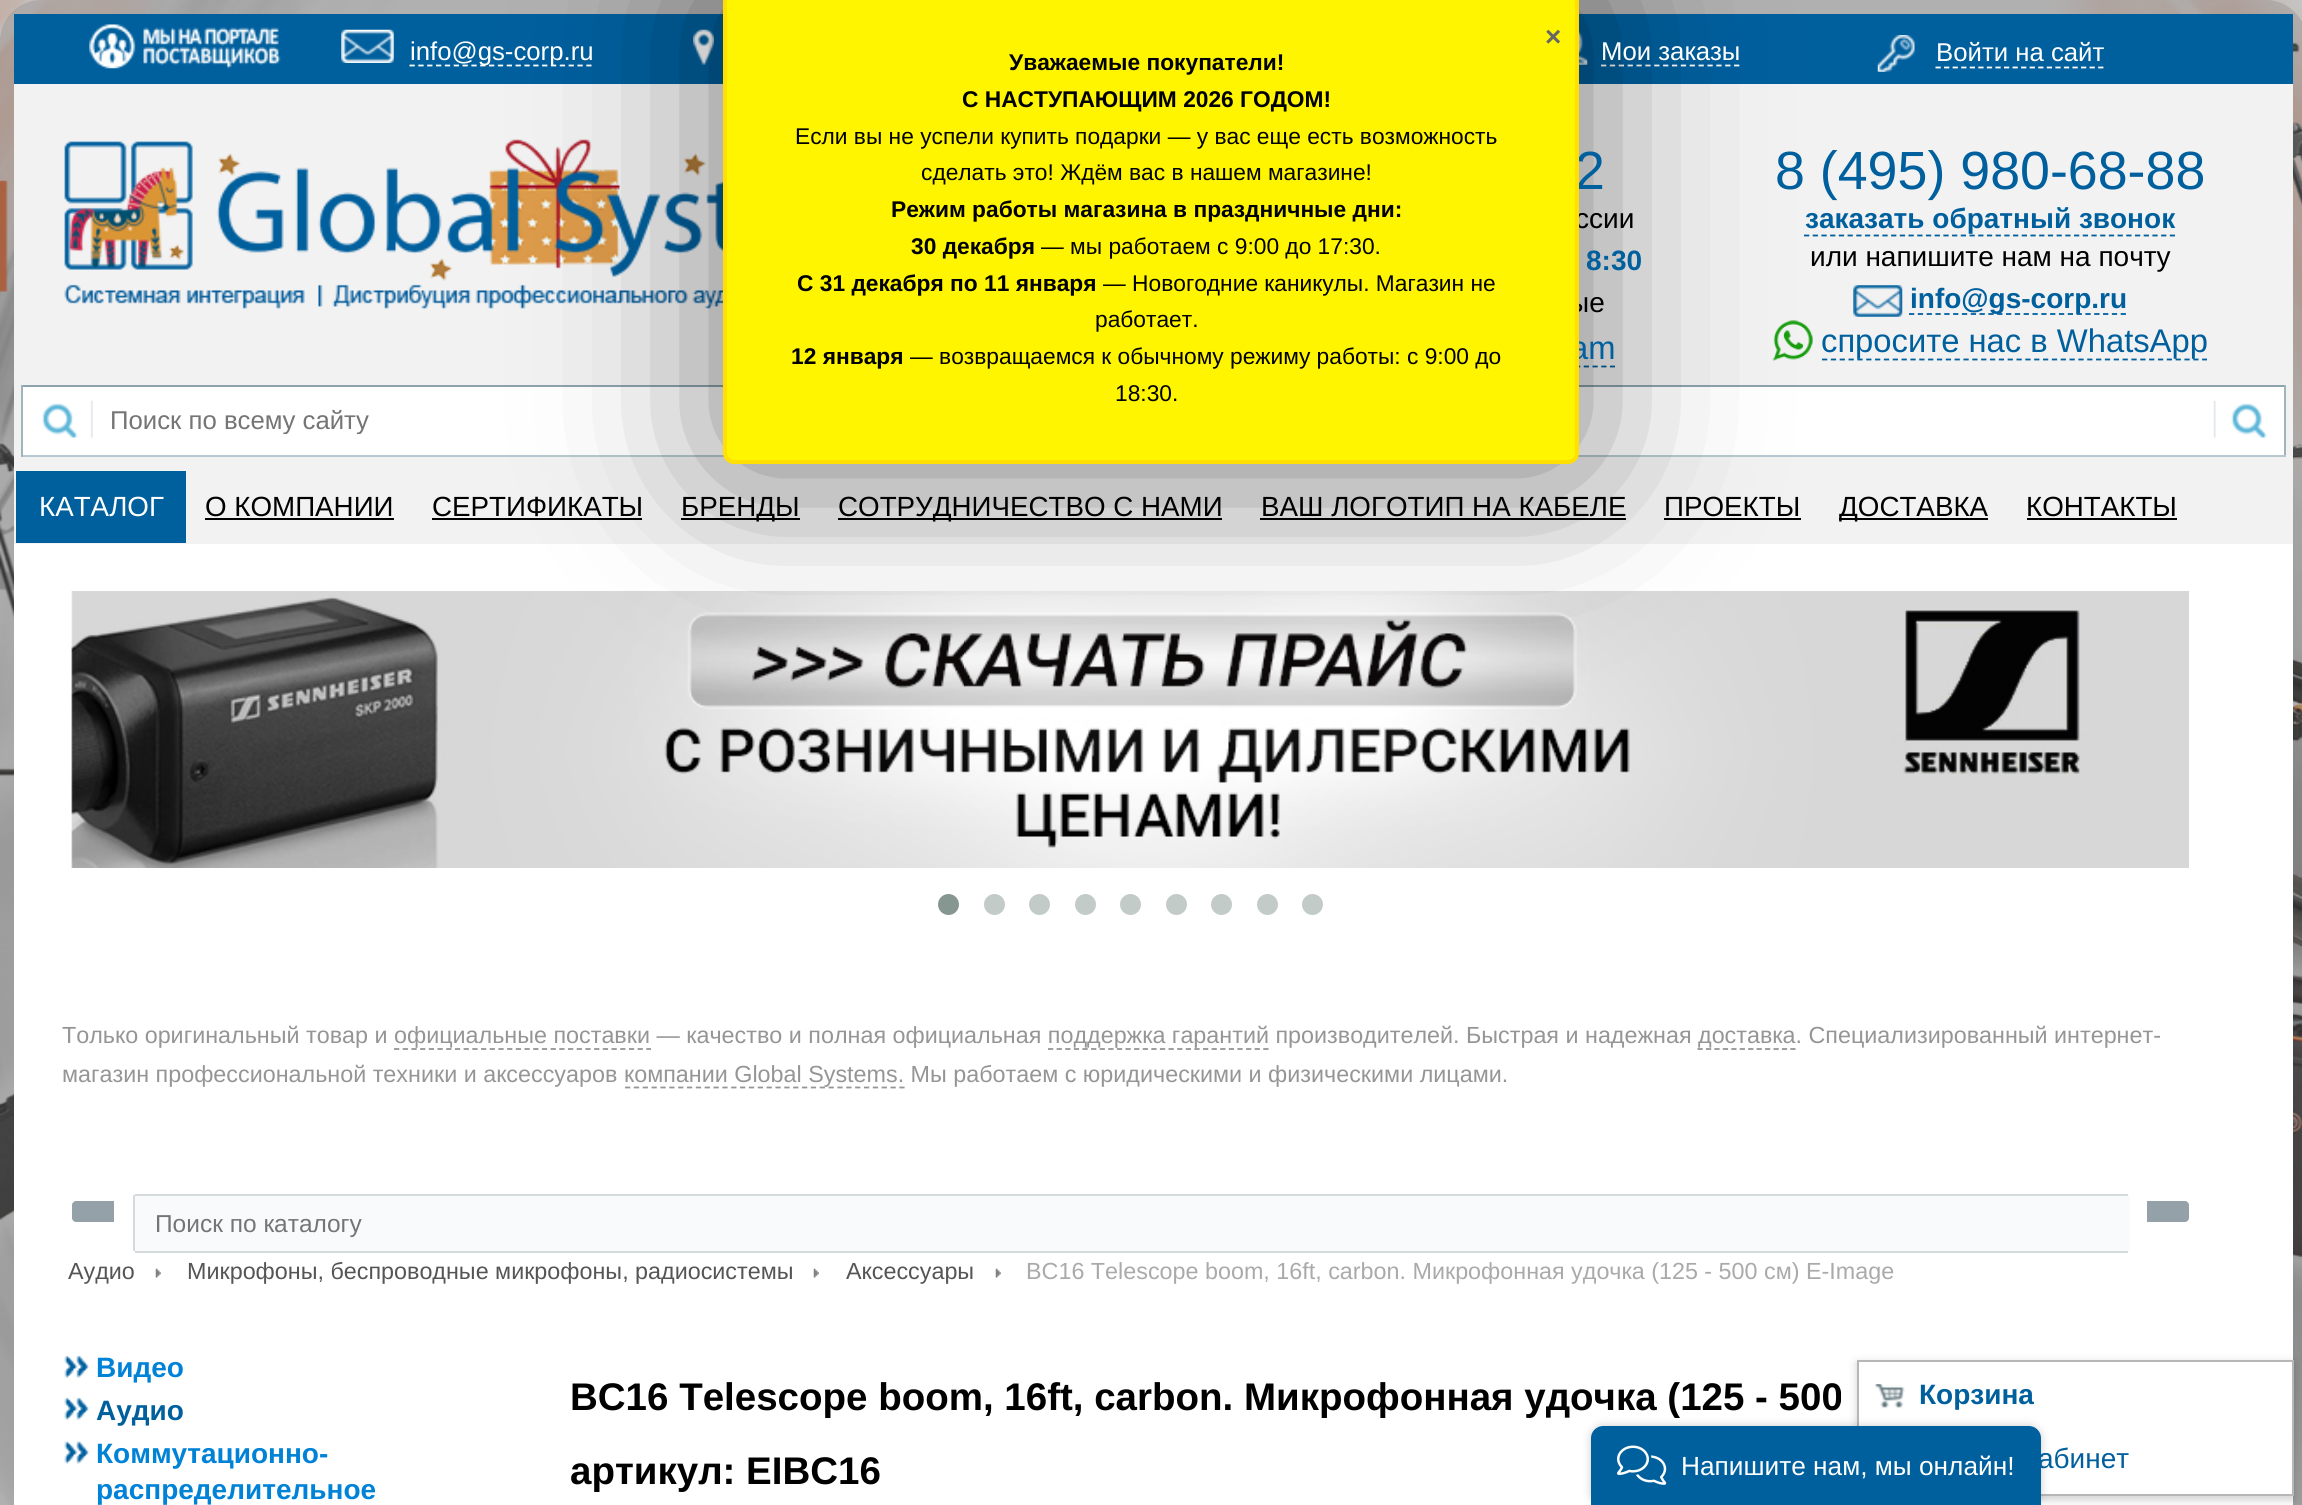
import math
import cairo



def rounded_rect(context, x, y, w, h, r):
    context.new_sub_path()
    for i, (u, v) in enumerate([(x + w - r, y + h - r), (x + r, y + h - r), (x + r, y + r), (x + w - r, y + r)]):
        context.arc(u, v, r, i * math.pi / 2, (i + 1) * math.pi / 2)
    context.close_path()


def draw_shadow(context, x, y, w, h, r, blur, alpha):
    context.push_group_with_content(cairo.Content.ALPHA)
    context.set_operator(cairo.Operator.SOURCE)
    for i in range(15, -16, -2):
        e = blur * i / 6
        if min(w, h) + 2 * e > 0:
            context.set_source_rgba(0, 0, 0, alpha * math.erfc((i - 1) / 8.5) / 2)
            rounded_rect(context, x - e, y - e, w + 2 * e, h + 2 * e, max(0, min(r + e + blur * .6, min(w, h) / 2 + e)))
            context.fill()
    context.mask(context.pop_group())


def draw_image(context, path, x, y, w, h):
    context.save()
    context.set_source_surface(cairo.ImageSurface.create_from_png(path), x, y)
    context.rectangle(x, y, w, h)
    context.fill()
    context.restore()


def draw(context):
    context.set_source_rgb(1, 1, 1)
    context.paint()
    draw_image(context, "images/1.png", 0, 0, 2302, 1505)
    context.set_source_rgb(97 / 255, 97 / 255, 97 / 255)
    draw_shadow(context, 9, 9, 2289, 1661, 0, 55, 1)
    context.set_source_rgb(1, 1, 1)
    context.rectangle(14, 544, 2279, 961)
    context.fill()
    context.set_source_rgb(0, 95 / 255, 157 / 255)
    context.rectangle(14, 14, 2279, 70)
    context.fill()
    draw_image(context, "images/2.png", 71, 591, 2118, 277)
    context.new_path()
    context.move_to(409.5, 65.5)
    context.line_to(591.5, 65.5)
    context.set_source_rgb(1, 1, 1)
    context.set_line_width(1.8)
    context.set_dash([5.25, 3.59])
    context.stroke()
    draw_image(context, "images/10.png", 693, 29, 21, 36)
    draw_image(context, "images/11.png", 1579, 31, 9, 34)
    context.new_path()
    context.move_to(1601, 65.5)
    context.line_to(1739.5, 65.5)
    context.set_dash([5.25, 3.62])
    context.stroke()
    context.set_source_rgb(242 / 255, 242 / 255, 242 / 255)
    context.rectangle(14, 84, 2279, 460)
    context.fill()
    draw_image(context, "images/13.png", 64, 139, 659, 170)
    context.new_path()
    context.move_to(1242.5, 366.5)
    context.line_to(1615, 366.5)
    context.set_source_rgb(0, 95 / 255, 157 / 255)
    context.set_dash([5.25, 3.5])
    context.stroke()
    context.new_path()
    context.move_to(1804, 235.5)
    context.line_to(2175, 235.5)
    context.set_dash([5.25, 3.46])
    context.stroke()
    draw_image(context, "images/15.png", 1772, 320, 41, 41)
    context.new_path()
    context.move_to(1822, 359.5)
    context.line_to(2207, 359.5)
    context.set_dash([5.25, 3.59])
    context.stroke()
    context.set_source_rgb(1, 1, 1)
    context.rectangle(23, 387, 2261, 68)
    context.fill()
    context.set_source_rgb(140 / 255, 163 / 255, 174 / 255)
    context.rectangle(21, 385, 2265, 2)
    context.fill()
    context.set_source_rgb(160 / 255, 180 / 255, 190 / 255)
    context.rectangle(2284, 385, 2, 72)
    context.fill()
    context.set_source_rgb(182 / 255, 200 / 255, 209 / 255)
    context.rectangle(21, 455, 2265, 2)
    context.fill()
    context.set_source_rgb(0, 0, 0)
    context.rectangle(432, 518, 210, 2)
    context.fill()
    context.rectangle(681, 518, 119, 2)
    context.fill()
    context.rectangle(838, 518, 384, 2)
    context.fill()
    context.rectangle(1260, 518, 366, 2)
    context.fill()
    context.rectangle(1664, 518, 137, 2)
    context.fill()
    context.rectangle(1839, 518, 149, 2)
    context.fill()
    context.set_source_rgb(0, 0, 0)
    draw_shadow(context, 723, -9, 856, 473, 11, 87.5, 0.5)
    context.set_source_rgb(134 / 255, 151 / 255, 145 / 255)
    context.arc(948.5, 904.5, 10.5, 0, 2 * math.pi)
    context.fill()
    context.set_source_rgb(195 / 255, 203 / 255, 200 / 255)
    context.arc(994.5, 904.5, 10.5, 0, 2 * math.pi)
    context.fill()
    context.arc(1039.5, 904.5, 10.5, 0, 2 * math.pi)
    context.fill()
    context.arc(1085.5, 904.5, 10.5, 0, 2 * math.pi)
    context.fill()
    context.arc(1130.5, 904.5, 10.5, 0, 2 * math.pi)
    context.fill()
    context.arc(1176.5, 904.5, 10.5, 0, 2 * math.pi)
    context.fill()
    context.arc(1221.5, 904.5, 10.5, 0, 2 * math.pi)
    context.fill()
    context.arc(1267.5, 904.5, 10.5, 0, 2 * math.pi)
    context.fill()
    context.arc(1312.5, 904.5, 10.5, 0, 2 * math.pi)
    context.fill()
    context.new_path()
    context.move_to(394, 1049)
    context.line_to(651, 1049)
    context.set_source_rgb(149 / 255, 149 / 255, 149 / 255)
    context.set_dash([5.25, 3.45])
    context.stroke()
    context.new_path()
    context.move_to(1048, 1049)
    context.line_to(1269, 1049)
    context.set_dash([5.25, 3.36])
    context.stroke()
    context.new_path()
    context.move_to(1697.5, 1049)
    context.line_to(1795.5, 1049)
    context.set_dash([5.25, 3.19])
    context.stroke()
    context.new_path()
    context.move_to(625, 1087.5)
    context.line_to(905, 1087.5)
    context.set_dash([5.25, 3.6])
    context.stroke()
    context.set_source_rgb(149 / 255, 161 / 255, 168 / 255)
    context.new_path()
    context.move_to(76, 1201)
    context.line_to(114, 1201)
    context.line_to(114, 1222)
    context.line_to(76, 1222)
    context.curve_to(74, 1222, 72, 1220, 72, 1218)
    context.line_to(72, 1205)
    context.curve_to(72, 1203, 74, 1201, 76, 1201)
    context.close_path()
    context.fill()
    context.new_path()
    context.move_to(2147, 1201)
    context.line_to(2185, 1201)
    context.curve_to(2187, 1201, 2189, 1203, 2189, 1205)
    context.line_to(2189, 1218)
    context.curve_to(2189, 1220, 2187, 1222, 2185, 1222)
    context.line_to(2147, 1222)
    context.close_path()
    context.fill()
    context.set_source_rgb(248 / 255, 250 / 255, 252 / 255)
    rounded_rect(context, 133, 1194, 1997, 59, 4)
    context.fill()
    context.set_source_rgb(213 / 255, 218 / 255, 220 / 255)
    context.rectangle(135, 1194, 1993, 2)
    context.fill()
    context.rectangle(135, 1251, 1993, 2)
    context.fill()
    context.rectangle(133, 1195, 2, 56)
    context.fill()
    draw_image(context, "images/3.png", 155, 1268, 6, 10)
    draw_image(context, "images/4.png", 813, 1268, 6, 10)
    draw_image(context, "images/3.png", 995, 1268, 6, 10)
    draw_image(context, "images/5.png", 64, 1355, 26, 23)
    draw_image(context, "images/5.png", 64, 1397, 26, 23)
    draw_image(context, "images/6.png", 64, 1441, 26, 23)
    context.set_source_rgb(0, 0, 0)
    draw_shadow(context, 1857, 1363, 437, 137, 0, 4.5, 0.18)
    context.set_source_rgb(1, 1, 1)
    context.rectangle(1858, 1361, 435, 134)
    context.fill_preserve()
    context.set_source_rgb(183 / 255, 183 / 255, 183 / 255)
    context.set_line_width(2)
    context.set_dash([])
    context.stroke()
    draw_image(context, "images/7.png", 1875, 1384, 30, 25)
    draw_image(context, "images/8.png", 89, 24, 192, 45)
    draw_image(context, "images/9.png", 341, 29, 53, 34)
    draw_image(context, "images/12.png", 1877, 35, 38, 37)
    context.new_path()
    context.move_to(1935.5, 67.5)
    context.line_to(2103.5, 67.5)
    context.set_source_rgb(1, 1, 1)
    context.set_line_width(1.8)
    context.set_dash([5.25, 3.31])
    context.stroke()
    draw_image(context, "images/14.png", 1853, 285, 50, 32)
    context.new_path()
    context.move_to(1909, 314)
    context.line_to(2126, 314)
    context.set_source_rgb(0, 95 / 255, 157 / 255)
    context.set_dash([5.25, 3.57])
    context.stroke()
    context.set_source_rgb(160 / 255, 180 / 255, 190 / 255)
    context.rectangle(21, 385, 2, 72)
    context.fill()
    draw_image(context, "images/16.png", 41, 400, 52, 38)
    draw_image(context, "images/17.png", 2213, 400, 54, 38)
    context.set_source_rgb(0, 95 / 255, 157 / 255)
    context.rectangle(16, 471, 170, 72)
    context.fill()
    context.set_source_rgb(0, 0, 0)
    context.rectangle(205, 518, 189, 2)
    context.fill()
    context.rectangle(2027, 518, 150, 2)
    context.fill()
    context.set_source_rgb(0, 0, 0)
    draw_shadow(context, 1591, 1426, 450, 79, 12, 4.5, 0.2)
    context.set_source_rgb(0, 95 / 255, 157 / 255)
    context.new_path()
    context.move_to(1603, 1426)
    context.line_to(2029, 1426)
    context.curve_to(2035.5, 1426, 2041, 1431.5, 2041, 1438)
    context.line_to(2041, 1505)
    context.line_to(1591, 1505)
    context.line_to(1591, 1438)
    context.curve_to(1591, 1431.5, 1596.5, 1426, 1603, 1426)
    context.close_path()
    context.fill()
    draw_image(context, "images/18.png", 1617, 1445, 50, 40)
    context.select_font_face("Liberation Sans")
    context.set_font_size(23.33)
    context.set_source_rgb(149 / 255, 149 / 255, 149 / 255)
    context.move_to(62, 1043)
    context.show_text("Только оригинальный товар и официальные поставки — качество и полная официальная поддержка гарантий производителей. Быстрая и надежная доставка. Специализированный интернет-")
    context.move_to(62, 1082)
    context.show_text("магазин профессиональной техники и аксессуаров")
    context.move_to(624, 1082)
    context.show_text("компании Global Systems. Мы работаем с юридическими и физическими лицами.")
    context.set_font_size(24.5)
    context.set_source_rgb(117 / 255, 117 / 255, 117 / 255)
    context.move_to(155, 1232)
    context.show_text("Поиск по каталогу")
    context.set_font_size(23.33)
    context.set_source_rgb(85 / 255, 85 / 255, 85 / 255)
    context.move_to(68, 1279)
    context.show_text("Аудио")
    context.move_to(187, 1279)
    context.show_text("Микрофоны, беспроводные микрофоны, радиосистемы")
    context.move_to(846, 1279)
    context.show_text("Аксессуары")
    context.set_source_rgb(170 / 255, 170 / 255, 170 / 255)
    context.move_to(1026, 1279)
    context.show_text("BC16 Telescope boom, 16ft, carbon. Микрофонная удочка (125 - 500 см) E-Image")
    context.select_font_face("Liberation Sans", cairo.FontSlant.NORMAL, cairo.FontWeight.BOLD)
    context.set_font_size(28)
    context.set_source_rgb(0, 130 / 255, 215 / 255)
    context.move_to(96, 1377)
    context.show_text("Видео")
    context.set_source_rgb(0, 95 / 255, 157 / 255)
    context.move_to(96, 1420)
    context.show_text("Аудио")
    context.set_source_rgb(0, 130 / 255, 215 / 255)
    context.move_to(96, 1463)
    context.show_text("Коммутационно-")
    context.move_to(96, 1499)
    context.show_text("распределительное")
    context.set_font_size(38.5)
    context.set_source_rgb(0, 0, 0)
    context.move_to(570, 1410)
    context.show_text("BC16 Telescope boom, 16ft, carbon. Микрофонная удочка (125 - 500")
    context.move_to(570, 1484)
    context.show_text("артикул: EIBC16")
    context.set_font_size(28)
    context.set_source_rgb(0, 95 / 255, 157 / 255)
    context.move_to(1919, 1404)
    context.show_text("Корзина")
    context.select_font_face("Liberation Sans")
    context.move_to(2038, 1468)
    context.show_text("абинет")
    context.set_font_size(25.75)
    context.set_source_rgb(1, 1, 1)
    context.move_to(410, 60)
    context.show_text("info@gs-corp.ru")
    context.move_to(1601, 60)
    context.show_text("Мои заказы")
    context.move_to(1936, 61)
    context.show_text("Войти на сайт")
    context.set_font_size(53.75)
    context.set_source_rgb(0, 95 / 255, 157 / 255)
    context.move_to(1575, 189)
    context.show_text("2")
    context.set_font_size(28)
    context.set_source_rgb(0, 0, 0)
    context.move_to(1575, 228)
    context.show_text("ссии")
    context.select_font_face("Liberation Sans", cairo.FontSlant.NORMAL, cairo.FontWeight.BOLD)
    context.set_source_rgb(0, 95 / 255, 157 / 255)
    context.move_to(1586, 270)
    context.show_text("8:30")
    context.select_font_face("Liberation Sans")
    context.set_source_rgb(0, 0, 0)
    context.move_to(1569, 312)
    context.show_text("ые")
    context.set_font_size(32.75)
    context.set_source_rgb(0, 95 / 255, 157 / 255)
    context.move_to(1570, 359)
    context.show_text("am")
    context.set_source_rgb(1, 245 / 255, 0)
    rounded_rect(context, 725, -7, 852, 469, 9)
    context.fill_preserve()
    context.set_source_rgb(1, 224 / 255, 0)
    context.set_line_width(4)
    context.set_dash([])
    context.stroke()
    context.select_font_face("Liberation Sans", cairo.FontSlant.NORMAL, cairo.FontWeight.BOLD)
    context.set_font_size(28)
    context.set_source_rgb(102 / 255, 102 / 255, 102 / 255)
    context.move_to(1545, 46)
    context.show_text("×")
    context.select_font_face("Liberation Sans")
    context.set_font_size(22.75)
    context.set_source_rgb(0, 0, 0)
    context.move_to(1115, 401)
    context.show_text("18:30.")
    context.move_to(910, 364)
    context.show_text("— возвращаемся к обычному режиму работы: с 9:00 до")
    context.select_font_face("Liberation Sans", cairo.FontSlant.NORMAL, cairo.FontWeight.BOLD)
    context.move_to(791, 364)
    context.show_text("12 января")
    context.select_font_face("Liberation Sans")
    context.move_to(1095, 327)
    context.show_text("работает.")
    context.move_to(1103, 291)
    context.show_text("— Новогодние каникулы. Магазин не")
    context.select_font_face("Liberation Sans", cairo.FontSlant.NORMAL, cairo.FontWeight.BOLD)
    context.move_to(797, 291)
    context.show_text("С 31 декабря по 11 января")
    context.select_font_face("Liberation Sans")
    context.move_to(1041, 254)
    context.show_text("— мы работаем с 9:00 до 17:30.")
    context.select_font_face("Liberation Sans", cairo.FontSlant.NORMAL, cairo.FontWeight.BOLD)
    context.move_to(911, 254)
    context.show_text("30 декабря")
    context.move_to(891, 217)
    context.show_text("Режим работы магазина в праздничные дни:")
    context.select_font_face("Liberation Sans")
    context.move_to(921, 180)
    context.show_text("сделать это! Ждём вас в нашем магазине!")
    context.move_to(795, 144)
    context.show_text("Если вы не успели купить подарки — у вас еще есть возможность")
    context.select_font_face("Liberation Sans", cairo.FontSlant.NORMAL, cairo.FontWeight.BOLD)
    context.move_to(962, 107)
    context.show_text("C НАСТУПАЮЩИМ 2026 ГОДОМ!")
    context.move_to(1009, 70)
    context.show_text("Уважаемые покупатели!")
    context.select_font_face("Liberation Sans")
    context.set_font_size(53.75)
    context.set_source_rgb(0, 95 / 255, 157 / 255)
    context.move_to(1775, 189)
    context.show_text("8 (495) 980-68-88")
    context.select_font_face("Liberation Sans", cairo.FontSlant.NORMAL, cairo.FontWeight.BOLD)
    context.set_font_size(28)
    context.move_to(1805, 228)
    context.show_text("заказать обратный звонок")
    context.select_font_face("Liberation Sans")
    context.set_source_rgb(0, 0, 0)
    context.move_to(1810, 266)
    context.show_text("или напишите нам на почту")
    context.select_font_face("Liberation Sans", cairo.FontSlant.NORMAL, cairo.FontWeight.BOLD)
    context.set_source_rgb(0, 95 / 255, 157 / 255)
    context.move_to(1910, 308)
    context.show_text("info@gs-corp.ru")
    context.select_font_face("Liberation Sans")
    context.set_font_size(32.75)
    context.move_to(1821, 352)
    context.show_text("спросите нас в WhatsApp")
    context.save()
    context.rectangle(110, 406, 2148, 28)
    context.clip()
    context.set_font_size(25.75)
    context.set_source_rgb(117 / 255, 117 / 255, 117 / 255)
    context.move_to(110, 429)
    context.show_text("Поиск по всему сайту")
    context.restore()
    context.set_font_size(27.75)
    context.set_source_rgb(1, 1, 1)
    context.move_to(39, 516)
    context.show_text("КАТАЛОГ")
    context.set_source_rgb(0, 0, 0)
    context.move_to(205, 516)
    context.show_text("О КОМПАНИИ")
    context.move_to(432, 516)
    context.show_text("СЕРТИФИКАТЫ")
    context.move_to(681, 516)
    context.show_text("БРЕНДЫ")
    context.move_to(838, 516)
    context.show_text("СОТРУДНИЧЕСТВО С НАМИ")
    context.move_to(1261, 516)
    context.show_text("ВАШ ЛОГОТИП НА КАБЕЛЕ")
    context.move_to(1664, 516)
    context.show_text("ПРОЕКТЫ")
    context.move_to(1839, 516)
    context.show_text("ДОСТАВКА")
    context.move_to(2026, 516)
    context.show_text("КОНТАКТЫ")
    context.set_font_size(26.25)
    context.set_source_rgb(1, 1, 1)
    context.move_to(1681, 1475)
    context.show_text("Напишите нам, мы онлайн!")


surface = cairo.ImageSurface(cairo.Format.RGB24, 2302, 1505)
context = cairo.Context(surface)
options = cairo.FontOptions()
options.set_hint_metrics(cairo.HintMetrics.OFF)
options.set_hint_style(cairo.HintStyle.NONE)
context.set_font_options(options)
context.set_miter_limit(4)
draw(context)
surface.write_to_png("out.png")
